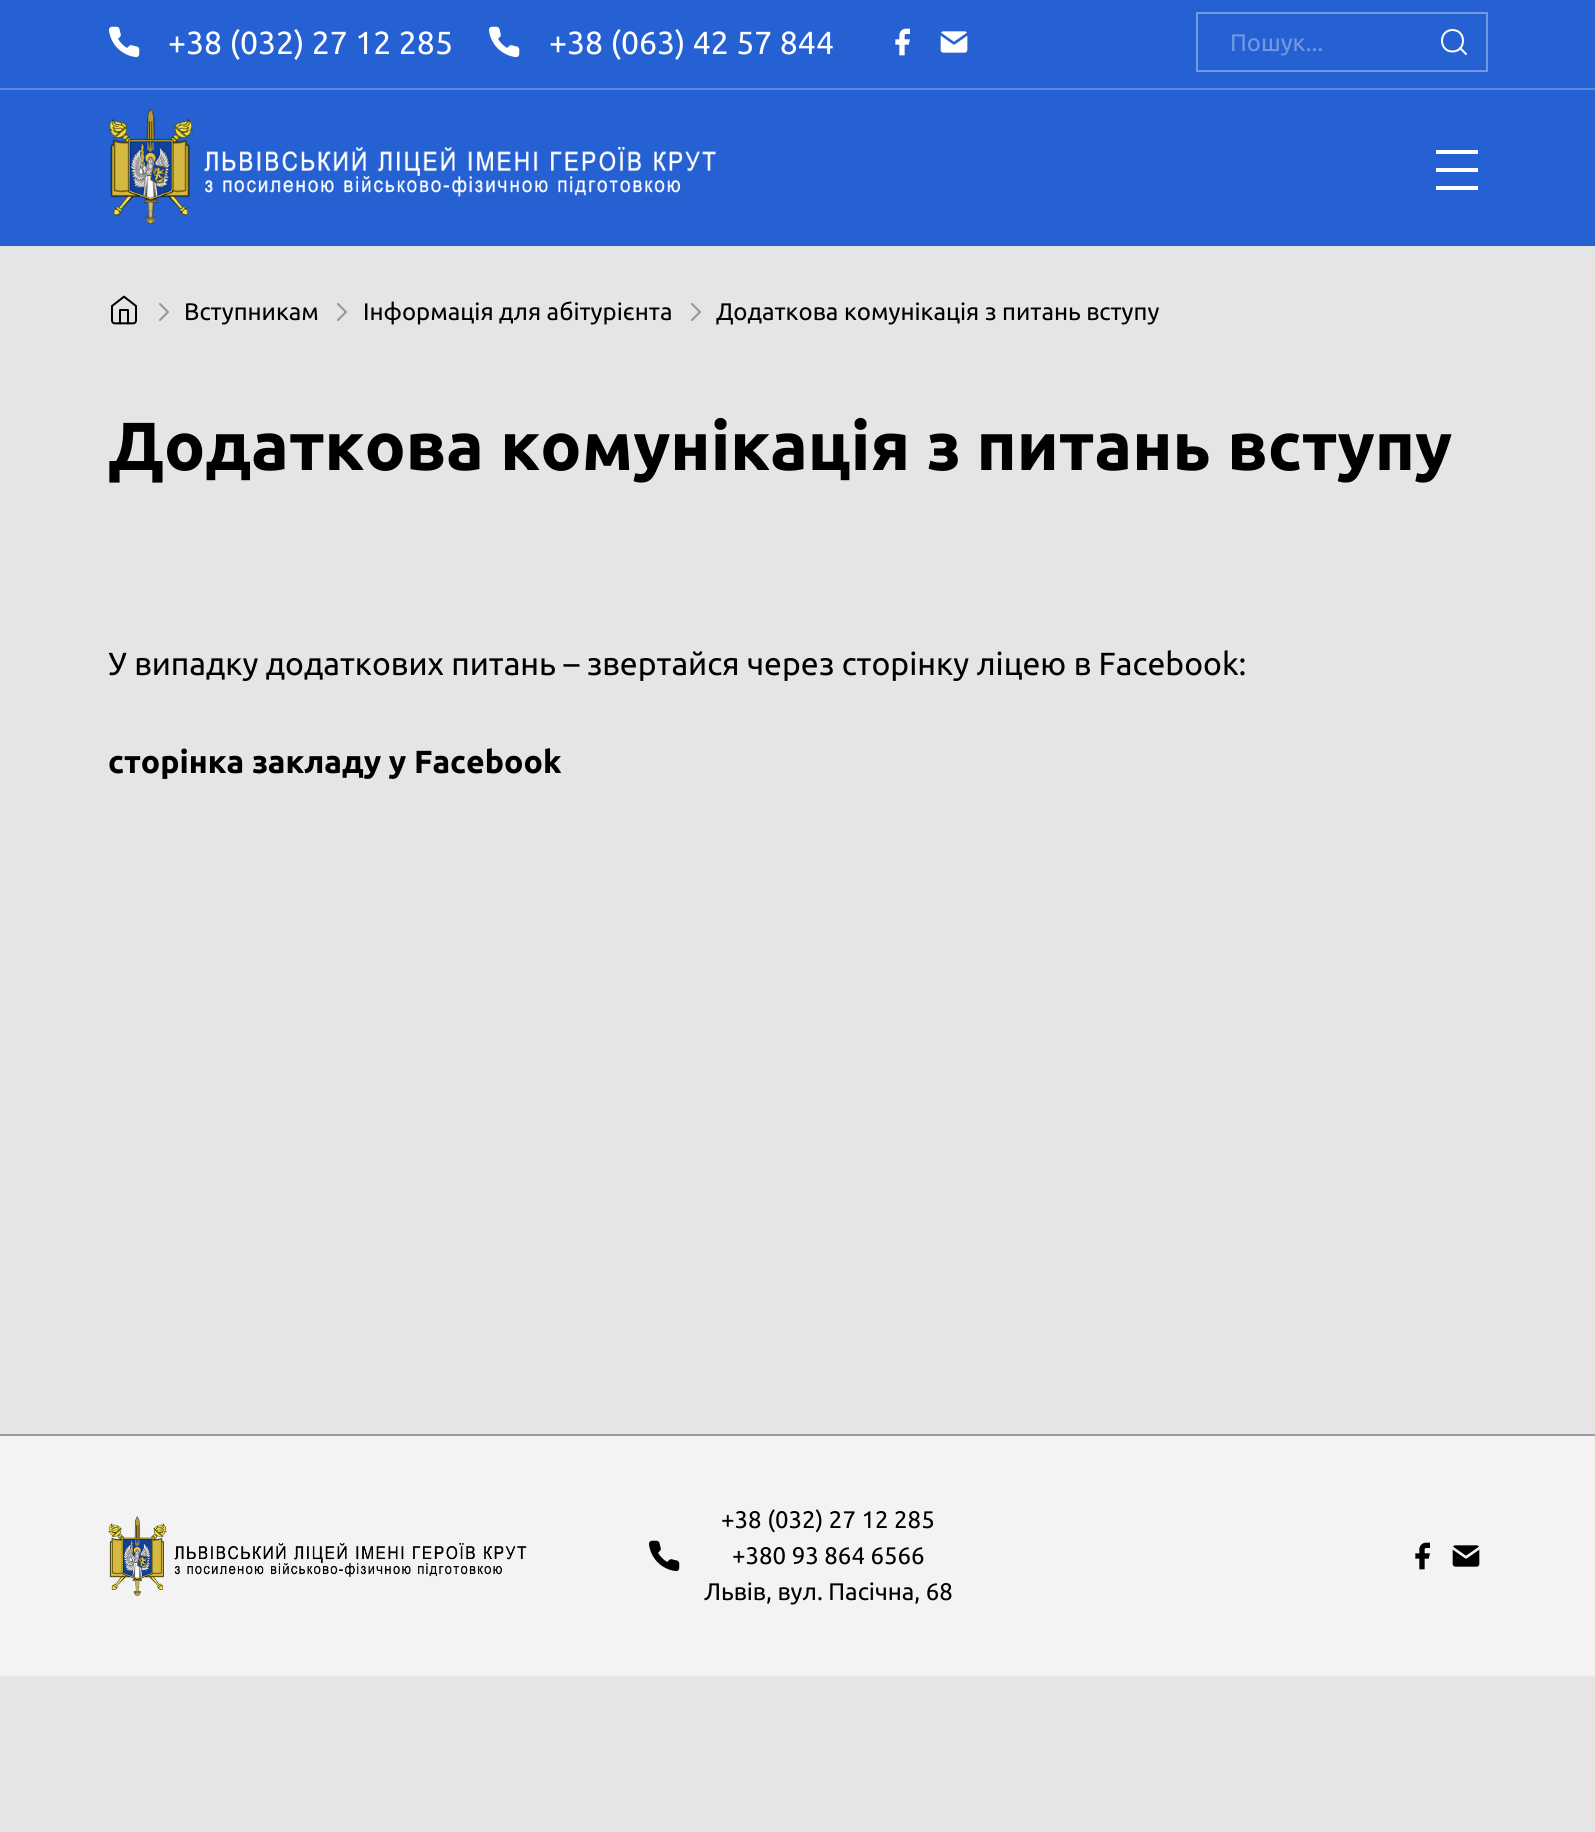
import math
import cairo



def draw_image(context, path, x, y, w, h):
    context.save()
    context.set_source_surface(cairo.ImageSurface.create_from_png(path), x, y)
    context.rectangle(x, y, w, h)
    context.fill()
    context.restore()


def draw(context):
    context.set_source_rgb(229 / 255, 229 / 255, 229 / 255)
    context.paint()
    context.set_source_rgb(37 / 255, 97 / 255, 210 / 255)
    context.rectangle(0, 0, 1595, 246)
    context.fill()
    context.set_source_rgb(92 / 255, 137 / 255, 221 / 255)
    context.rectangle(0, 88, 1595, 2)
    context.fill()
    draw_image(context, "images/1.png", 109, 26, 31, 32)
    draw_image(context, "images/1.png", 489, 26, 31, 32)
    draw_image(context, "images/2.png", 895, 28, 15, 28)
    draw_image(context, "images/3.png", 940, 31, 28, 22)
    context.rectangle(1197, 13, 290, 58)
    context.set_source_rgb(113 / 255, 152 / 255, 226 / 255)
    context.stroke()
    context.new_path()
    context.move_to(1452.5, 51.5)
    context.curve_to(1466.5, 51.5, 1466.5, 30, 1452.5, 30)
    context.curve_to(1438.5, 30, 1438.5, 51.5, 1452.5, 51.5)
    context.close_path()
    context.move_to(1466, 54)
    context.line_to(1460, 48)
    context.set_source_rgb(1, 1, 1)
    context.set_line_cap(cairo.LineCap.ROUND)
    context.set_line_join(cairo.LineJoin.ROUND)
    context.stroke()
    draw_image(context, "images/4.png", 108, 108, 608, 116)
    context.rectangle(1436, 150, 42, 4)
    context.fill()
    context.rectangle(1436, 168, 42, 4)
    context.fill()
    context.rectangle(1436, 186, 42, 4)
    context.fill()
    draw_image(context, "images/5.png", 111, 295, 26, 30)
    context.new_path()
    context.move_to(160, 320)
    context.line_to(168, 312)
    context.line_to(160, 304)
    context.set_source_rgb(149 / 255, 149 / 255, 149 / 255)
    context.stroke()
    context.new_path()
    context.move_to(338, 320)
    context.line_to(346, 312)
    context.line_to(338, 304)
    context.stroke()
    context.new_path()
    context.move_to(692, 320)
    context.line_to(700, 312)
    context.line_to(692, 304)
    context.stroke()
    context.set_source_rgb(243 / 255, 243 / 255, 243 / 255)
    context.rectangle(0, 1436, 1595, 240)
    context.fill()
    context.set_source_rgb(153 / 255, 156 / 255, 160 / 255)
    context.rectangle(0, 1434, 1595, 2)
    context.fill()
    draw_image(context, "images/6.png", 108, 1516, 419, 80)
    draw_image(context, "images/7.png", 649, 1540, 31, 32)
    draw_image(context, "images/8.png", 1415, 1542, 15, 28)
    draw_image(context, "images/9.png", 1452, 1545, 28, 22)
    context.select_font_face("Ubuntu")
    context.set_font_size(32)
    context.set_source_rgb(1, 1, 1)
    context.move_to(168, 54)
    context.show_text("+38 (032) 27 12 285")
    context.move_to(549, 54)
    context.show_text("+38 (063) 42 57 844")
    context.set_font_size(24)
    context.set_source_rgb(113 / 255, 152 / 255, 226 / 255)
    context.move_to(1230, 51)
    context.show_text("Пошук...")
    context.set_source_rgb(0, 0, 0)
    context.move_to(184, 320)
    context.show_text("Вступникам")
    context.move_to(363, 320)
    context.show_text("Інформація для абітурієнта")
    context.move_to(716, 320)
    context.show_text("Додаткова комунікація з питань вступу")
    context.select_font_face("Ubuntu", cairo.FontSlant.NORMAL, cairo.FontWeight.BOLD)
    context.set_font_size(68)
    context.move_to(108, 470)
    context.show_text("Додаткова комунікація з питань вступу")
    context.select_font_face("Ubuntu")
    context.set_font_size(32)
    context.move_to(108, 675)
    context.show_text("У випадку додаткових питань – звертайся через сторінку ліцею в Facebook:")
    context.select_font_face("Ubuntu", cairo.FontSlant.NORMAL, cairo.FontWeight.BOLD)
    context.move_to(108, 773)
    context.show_text("сторінка закладу у Facebook")
    context.select_font_face("Ubuntu")
    context.set_font_size(24)
    context.move_to(721, 1528)
    context.show_text("+38 (032) 27 12 285")
    context.move_to(732, 1564)
    context.show_text("+380 93 864 6566")
    context.move_to(704, 1600)
    context.show_text("Львів, вул. Пасічна, 68")


surface = cairo.ImageSurface(cairo.Format.RGB24, 1595, 1832)
context = cairo.Context(surface)
options = cairo.FontOptions()
options.set_hint_metrics(cairo.HintMetrics.OFF)
options.set_hint_style(cairo.HintStyle.NONE)
context.set_font_options(options)
context.set_miter_limit(4)
draw(context)
surface.write_to_png("out.png")
